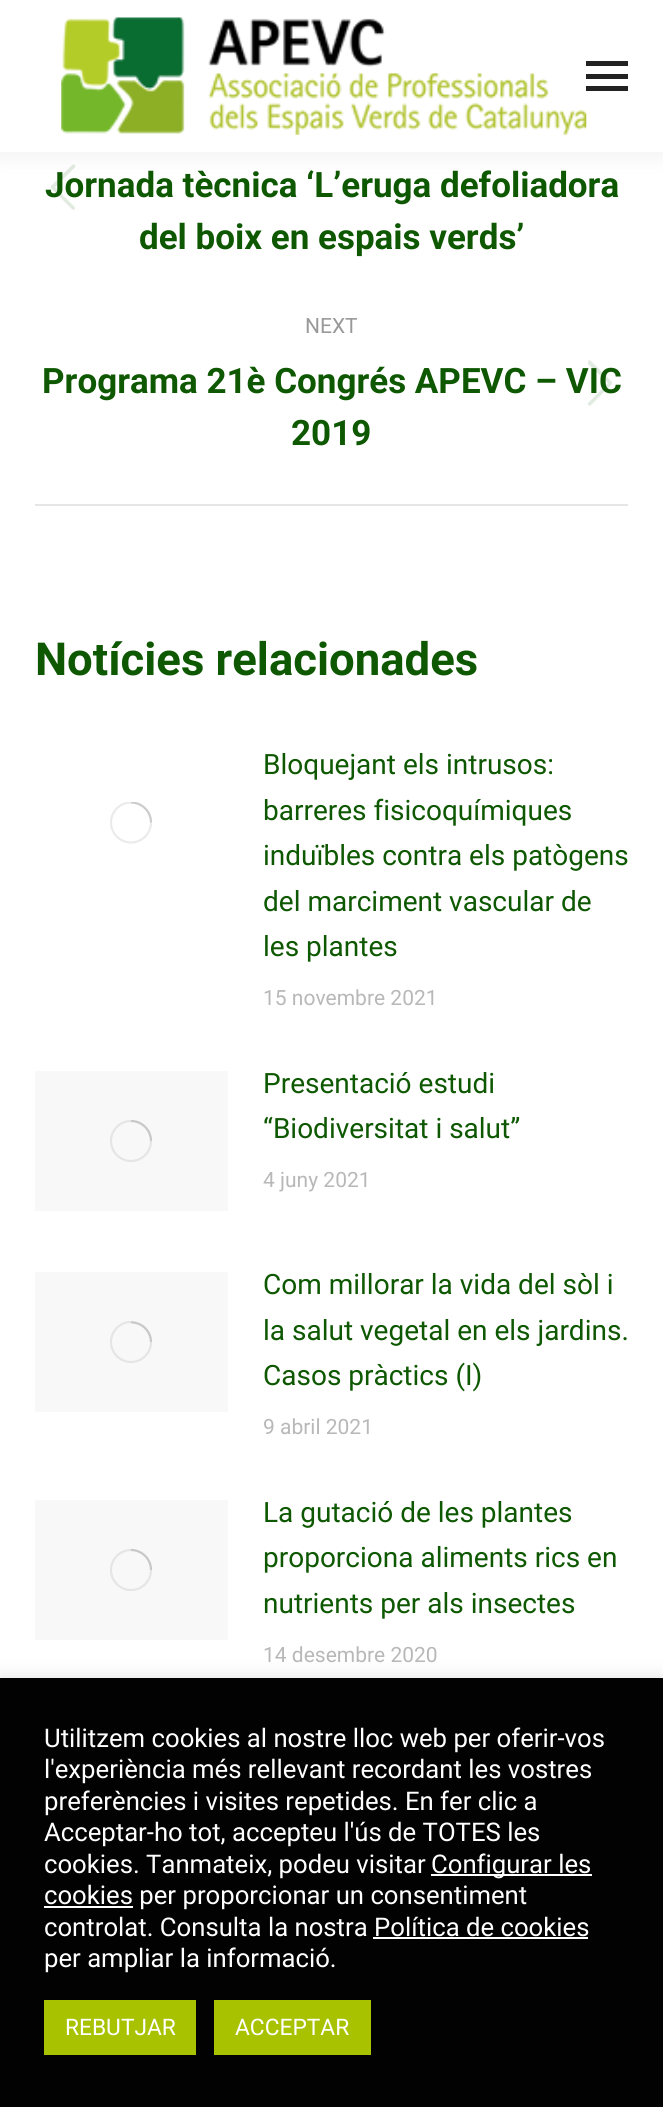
import math
import cairo



def rounded_rect(context, x, y, w, h, r):
    context.new_sub_path()
    for i, (u, v) in enumerate([(x + w - r, y + h - r), (x + r, y + h - r), (x + r, y + r), (x + w - r, y + r)]):
        context.arc(u, v, r, i * math.pi / 2, (i + 1) * math.pi / 2)
    context.close_path()


def draw_shadow(context, x, y, w, h, r, blur, alpha):
    context.push_group_with_content(cairo.Content.ALPHA)
    context.set_operator(cairo.Operator.SOURCE)
    for i in range(15, -16, -2):
        e = blur * i / 6
        if min(w, h) + 2 * e > 0:
            context.set_source_rgba(0, 0, 0, alpha * math.erfc((i - 1) / 8.5) / 2)
            rounded_rect(context, x - e, y - e, w + 2 * e, h + 2 * e, max(0, min(r + e + blur * .6, min(w, h) / 2 + e)))
            context.fill()
    context.mask(context.pop_group())


def draw_image(context, path, x, y, w, h):
    context.save()
    context.set_source_surface(cairo.ImageSurface.create_from_png(path), x, y)
    context.rectangle(x, y, w, h)
    context.fill()
    context.restore()


def draw(context):
    context.set_source_rgb(1, 1, 1)
    context.paint()
    context.set_source_rgb(230 / 255, 230 / 255, 230 / 255)
    context.rectangle(35, 504, 593, 2)
    context.fill()
    context.set_source_rgba(14 / 255, 88 / 255, 2 / 255, 0.12)
    context.new_path()
    context.move_to(588, 361)
    context.curve_to(589, 360, 590, 360, 591, 361)
    context.line_to(612, 382)
    context.curve_to(612, 383, 612, 384, 612, 384)
    context.line_to(591, 405)
    context.curve_to(590, 406, 589, 406, 588, 405)
    context.curve_to(588, 405, 588, 404, 588, 403)
    context.line_to(608, 383)
    context.line_to(588, 364)
    context.close_path()
    context.fill()
    context.save()
    context.rectangle(110, 802, 42, 42)
    context.clip()
    context.arc(131, 822.5, 20, 0, 2 * math.pi)
    context.set_source_rgb(235 / 255, 235 / 255, 235 / 255)
    context.set_line_width(2.2)
    context.stroke()
    context.new_path()
    context.move_to(151, 822.5)
    context.curve_to(151, 811.5, 142, 802.5, 131, 802.5)
    context.set_source_rgba(112 / 255, 112 / 255, 112 / 255, 0.25)
    context.stroke()
    context.restore()
    context.set_source_rgb(248 / 255, 248 / 255, 248 / 255)
    context.rectangle(35, 1071, 193, 140)
    context.fill()
    context.save()
    context.rectangle(110, 1120, 42, 42)
    context.clip()
    context.arc(131, 1141, 20, 0, 2 * math.pi)
    context.set_source_rgb(229 / 255, 229 / 255, 229 / 255)
    context.set_line_width(2.2)
    context.stroke()
    context.restore()
    context.new_path()
    context.move_to(151, 1141)
    context.curve_to(151, 1130, 142, 1121, 131, 1121)
    context.set_source_rgba(112 / 255, 112 / 255, 112 / 255, 0.25)
    context.set_line_width(2.2)
    context.stroke()
    context.set_source_rgb(248 / 255, 248 / 255, 248 / 255)
    context.rectangle(35, 1272, 193, 140)
    context.fill()
    context.save()
    context.rectangle(110, 1321, 42, 42)
    context.clip()
    context.arc(131, 1342, 20, 0, 2 * math.pi)
    context.set_source_rgb(229 / 255, 229 / 255, 229 / 255)
    context.stroke()
    context.restore()
    context.new_path()
    context.move_to(151, 1342)
    context.curve_to(151, 1331.5, 142, 1322.5, 131, 1322.5)
    context.set_source_rgba(112 / 255, 112 / 255, 112 / 255, 0.25)
    context.stroke()
    context.set_source_rgb(248 / 255, 248 / 255, 248 / 255)
    context.rectangle(35, 1500, 193, 140)
    context.fill()
    context.save()
    context.rectangle(110, 1549, 42, 42)
    context.clip()
    context.arc(131, 1570, 20, 0, 2 * math.pi)
    context.set_source_rgb(229 / 255, 229 / 255, 229 / 255)
    context.stroke()
    context.restore()
    context.new_path()
    context.move_to(151, 1570)
    context.curve_to(151, 1559, 142, 1550, 131, 1550)
    context.set_source_rgba(112 / 255, 112 / 255, 112 / 255, 0.25)
    context.stroke()
    context.set_source_rgb(172 / 255, 171 / 255, 171 / 255)
    draw_shadow(context, 0, 1677, 663, 428, 0, 9, 0.3)
    context.set_source_rgb(2 / 255, 2 / 255, 2 / 255)
    context.rectangle(0, 1678, 663, 429)
    context.fill()
    context.set_source_rgb(1, 1, 1)
    context.rectangle(431, 1874, 161, 2)
    context.fill()
    context.rectangle(44, 1906, 89, 2)
    context.fill()
    context.rectangle(373, 1937, 215, 2)
    context.fill()
    context.set_source_rgb(168 / 255, 194 / 255, 0)
    context.rectangle(44, 2000, 152, 55)
    context.fill()
    context.rectangle(214, 2000, 157, 55)
    context.fill()
    context.select_font_face("Roboto", cairo.FontSlant.NORMAL, cairo.FontWeight.BOLD)
    context.set_font_size(35)
    context.set_source_rgb(14 / 255, 88 / 255, 2 / 255)
    context.move_to(45, 197)
    context.show_text("Jornada tècnica ‘L’eruga defoliadora")
    draw_image(context, "images/2.png", 50, 164, 26, 46)
    context.set_source_rgb(0, 0, 0)
    draw_shadow(context, -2, -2, 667, 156, 0, 13, 0.07)
    context.set_source_rgb(1, 1, 1)
    context.rectangle(0, 0, 663, 152)
    context.fill()
    draw_image(context, "images/1.png", 61, 17, 526, 118)
    context.set_source_rgb(34 / 255, 34 / 255, 34 / 255)
    context.rectangle(586, 86, 42, 5)
    context.fill()
    context.rectangle(586, 74, 42, 5)
    context.fill()
    context.rectangle(586, 61, 42, 5)
    context.fill()
    context.set_source_rgb(14 / 255, 88 / 255, 2 / 255)
    context.move_to(139, 249)
    context.show_text("del boix en espais verds’")
    context.select_font_face("Roboto")
    context.set_font_size(21)
    context.set_source_rgb(153 / 255, 153 / 255, 153 / 255)
    context.move_to(305, 333)
    context.show_text("NEXT")
    context.select_font_face("Roboto", cairo.FontSlant.NORMAL, cairo.FontWeight.BOLD)
    context.set_font_size(35)
    context.set_source_rgb(14 / 255, 88 / 255, 2 / 255)
    context.move_to(42, 393)
    context.show_text("Programa 21è Congrés APEVC – VIC")
    context.move_to(291, 445)
    context.show_text("2019")
    context.set_font_size(45.5)
    context.move_to(35, 675)
    context.show_text("Notícies relacionades")
    context.select_font_face("Roboto")
    context.set_font_size(28)
    context.move_to(263, 774)
    context.show_text("Bloquejant els intrusos:")
    context.move_to(263, 820)
    context.show_text("barreres fisicoquímiques")
    context.move_to(263, 865)
    context.show_text("induïbles contra els patògens")
    context.move_to(263, 911)
    context.show_text("del marciment vascular de")
    context.move_to(263, 956)
    context.show_text("les plantes")
    context.set_font_size(21)
    context.set_source_rgb(184 / 255, 184 / 255, 184 / 255)
    context.move_to(263, 1005)
    context.show_text("15 novembre 2021")
    context.set_font_size(28)
    context.set_source_rgb(14 / 255, 88 / 255, 2 / 255)
    context.move_to(263, 1093)
    context.show_text("Presentació estudi")
    context.move_to(263, 1138)
    context.show_text("“Biodiversitat i salut”")
    context.set_font_size(21)
    context.set_source_rgb(184 / 255, 184 / 255, 184 / 255)
    context.move_to(263, 1187)
    context.show_text("4 juny 2021")
    context.set_font_size(28)
    context.set_source_rgb(14 / 255, 88 / 255, 2 / 255)
    context.move_to(263, 1294)
    context.show_text("Com millorar la vida del sòl i")
    context.move_to(263, 1340)
    context.show_text("la salut vegetal en els jardins.")
    context.move_to(263, 1385)
    context.show_text("Casos pràctics (I)")
    context.set_font_size(21)
    context.set_source_rgb(184 / 255, 184 / 255, 184 / 255)
    context.move_to(263, 1434)
    context.show_text("9 abril 2021")
    context.set_font_size(28)
    context.set_source_rgb(14 / 255, 88 / 255, 2 / 255)
    context.move_to(263, 1522)
    context.show_text("La gutació de les plantes")
    context.move_to(263, 1567)
    context.show_text("proporciona aliments rics en")
    context.move_to(263, 1613)
    context.show_text("nutrients per als insectes")
    context.set_font_size(21)
    context.set_source_rgb(184 / 255, 184 / 255, 184 / 255)
    context.move_to(263, 1662)
    context.show_text("14 desembre 2020")
    context.set_font_size(25.7)
    context.set_source_rgb(1, 1, 1)
    context.move_to(44, 1747)
    context.show_text("Utilitzem cookies al nostre lloc web per oferir-vos")
    context.move_to(44, 1778)
    context.show_text("l'experiència més rellevant recordant les vostres")
    context.move_to(44, 1810)
    context.show_text("preferències i visites repetides. En fer clic a")
    context.move_to(44, 1841)
    context.show_text("Acceptar-ho tot, accepteu l'ús de TOTES les")
    context.move_to(44, 1873)
    context.show_text("cookies. Tanmateix, podeu visitar")
    context.move_to(431, 1873)
    context.show_text("Configurar les")
    context.move_to(44, 1904)
    context.show_text("cookies per proporcionar un consentiment")
    context.move_to(44, 1936)
    context.show_text("controlat. Consulta la nostra Política de cookies")
    context.move_to(44, 1967)
    context.show_text("per ampliar la informació.")
    context.set_font_size(22.75)
    context.move_to(65, 2035)
    context.show_text("REBUTJAR")
    context.move_to(235, 2035)
    context.show_text("ACCEPTAR")


surface = cairo.ImageSurface(cairo.Format.RGB24, 663, 2107)
context = cairo.Context(surface)
options = cairo.FontOptions()
options.set_hint_metrics(cairo.HintMetrics.OFF)
options.set_hint_style(cairo.HintStyle.NONE)
context.set_font_options(options)
context.set_miter_limit(4)
draw(context)
surface.write_to_png("out.png")
